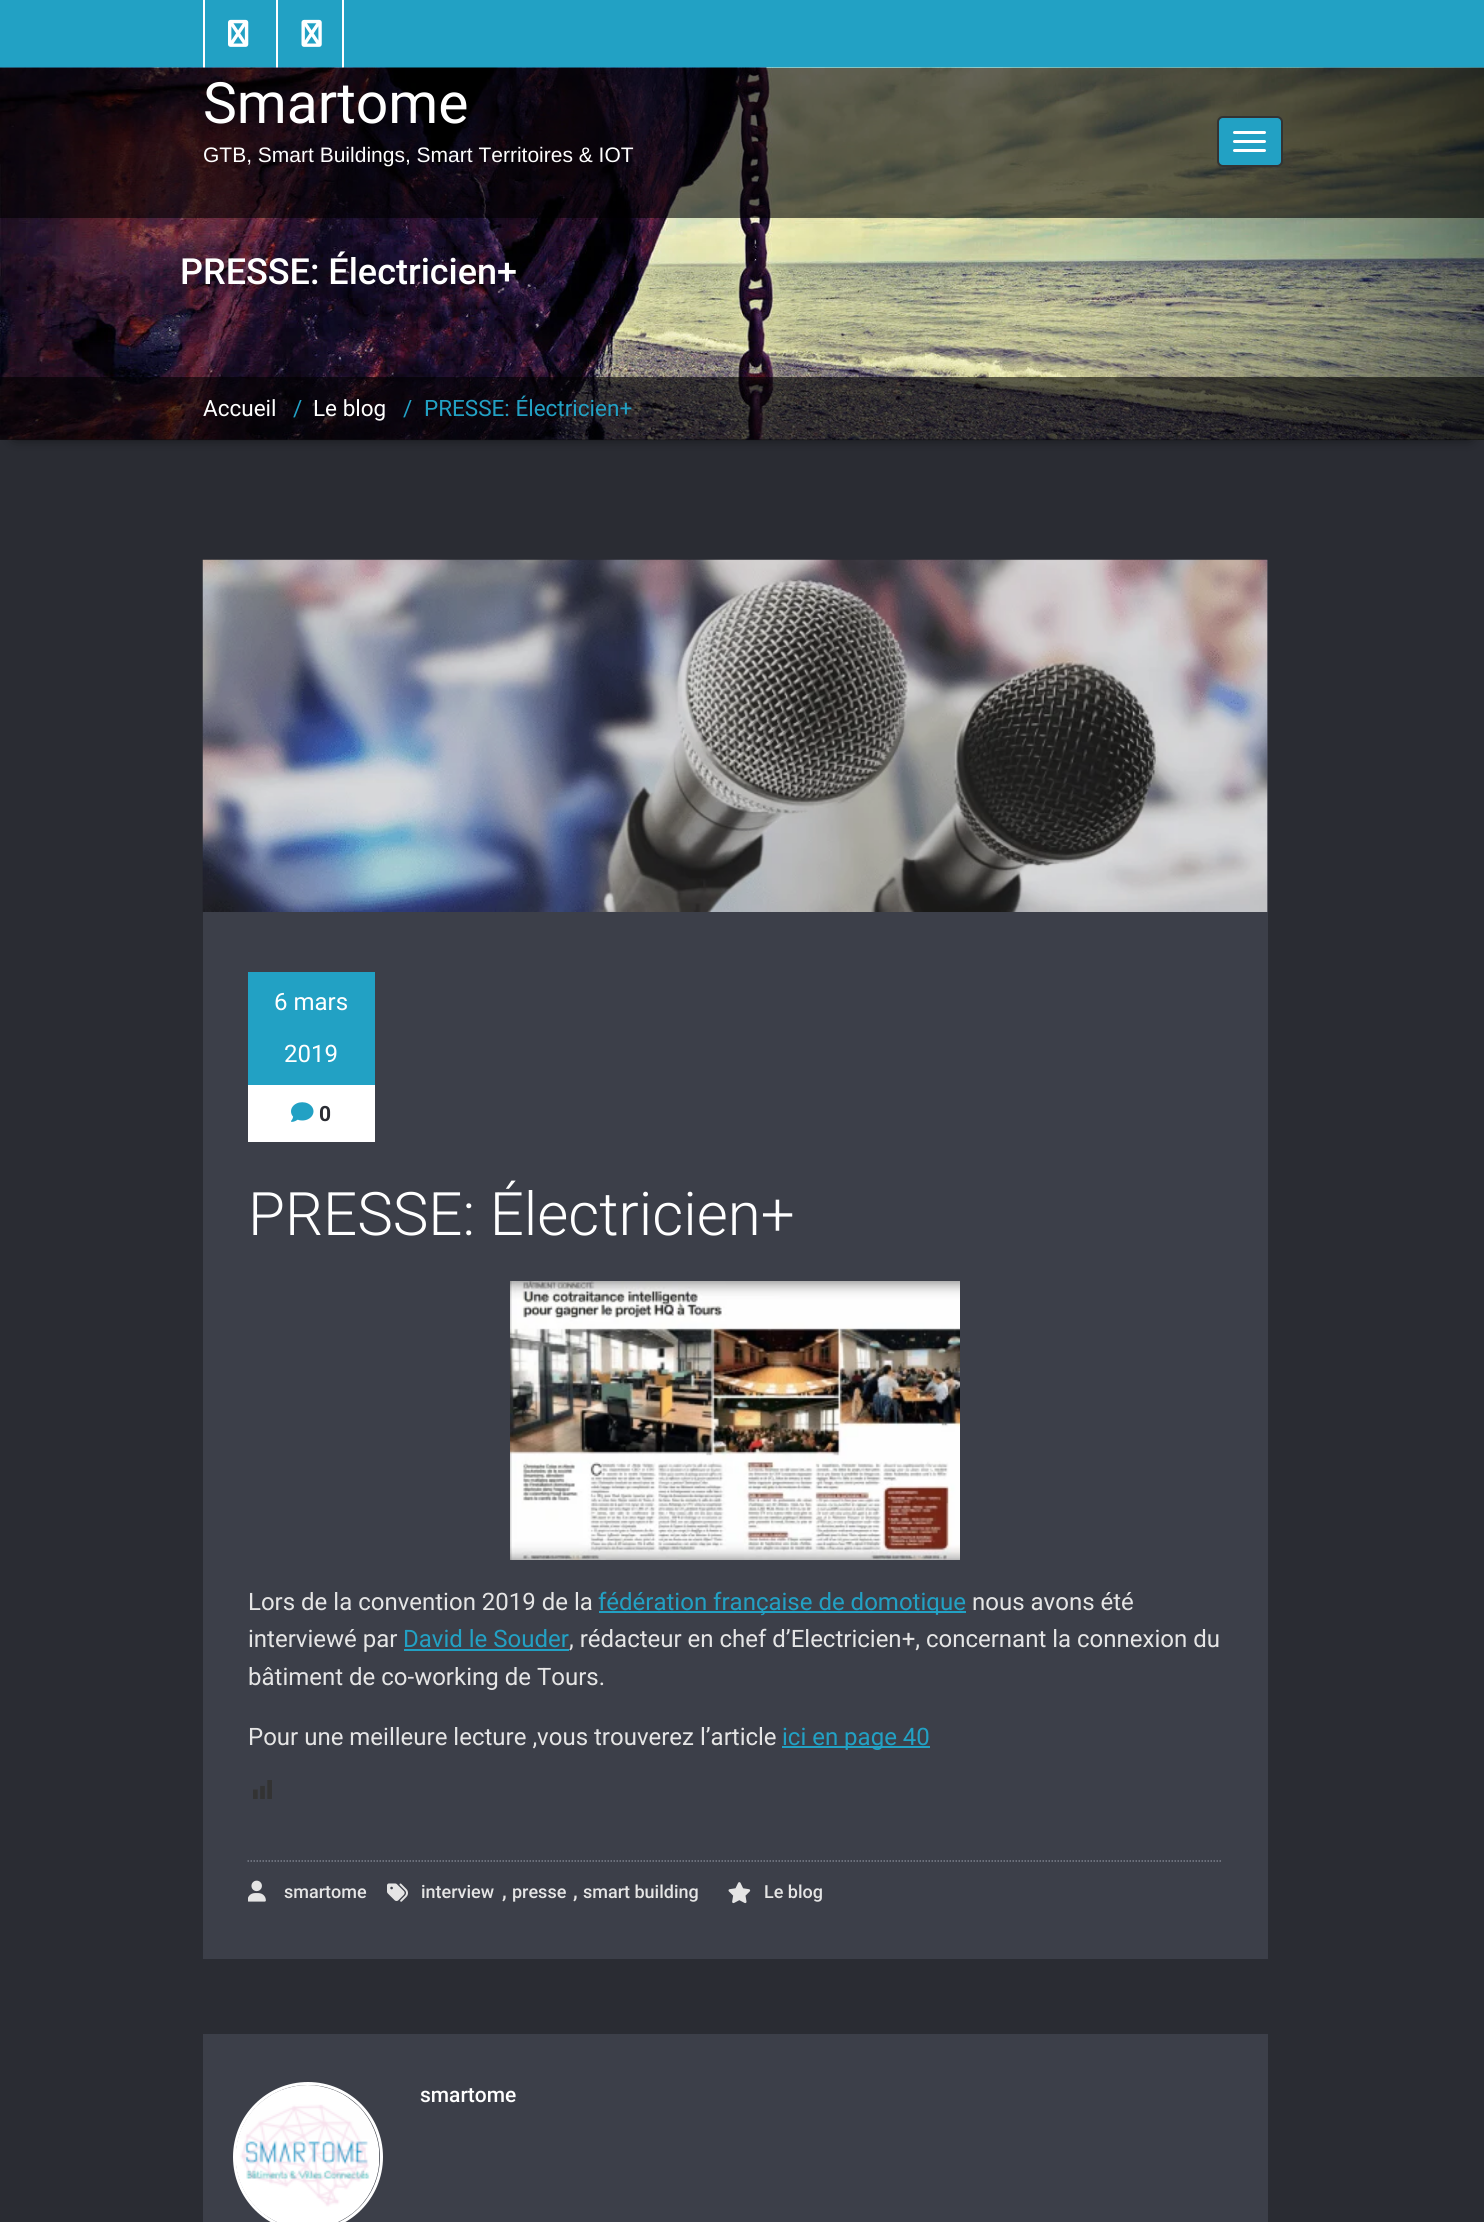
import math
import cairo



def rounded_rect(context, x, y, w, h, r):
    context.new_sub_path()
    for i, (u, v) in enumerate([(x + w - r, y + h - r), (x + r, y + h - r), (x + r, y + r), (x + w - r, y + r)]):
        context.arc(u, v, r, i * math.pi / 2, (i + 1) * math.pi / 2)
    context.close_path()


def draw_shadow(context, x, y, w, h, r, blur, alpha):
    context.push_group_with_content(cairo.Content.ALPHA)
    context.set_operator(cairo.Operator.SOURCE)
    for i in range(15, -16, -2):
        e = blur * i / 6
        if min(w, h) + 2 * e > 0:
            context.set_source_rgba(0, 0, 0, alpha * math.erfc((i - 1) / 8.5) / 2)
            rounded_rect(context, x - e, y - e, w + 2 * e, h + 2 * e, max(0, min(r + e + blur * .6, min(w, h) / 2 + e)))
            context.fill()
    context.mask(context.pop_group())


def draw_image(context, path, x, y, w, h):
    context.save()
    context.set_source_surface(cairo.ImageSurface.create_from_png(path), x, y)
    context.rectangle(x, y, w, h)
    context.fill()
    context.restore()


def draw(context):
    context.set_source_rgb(42 / 255, 44 / 255, 51 / 255)
    context.paint()
    context.set_source_rgb(34 / 255, 161 / 255, 196 / 255)
    context.rectangle(0, 0, 1484, 68)
    context.fill()
    context.set_source_rgb(1, 1, 1)
    context.rectangle(203, 0, 2, 68)
    context.fill()
    draw_image(context, "images/1.png", 228, 19, 21, 28)
    context.rectangle(342, 0, 2, 68)
    context.fill()
    context.rectangle(276, 0, 2, 68)
    context.fill()
    draw_image(context, "images/2.png", 301, 19, 21, 28)
    context.set_source_rgb(0, 0, 0)
    draw_shadow(context, 15, 93, 1455, 342, 0, 7.5, 1)
    draw_image(context, "images/3.png", 0, 67, 1484, 373)
    context.set_source_rgba(0, 0, 0, 0.6)
    context.rectangle(0, 68, 1484, 150)
    context.fill()
    context.set_source_rgb(34 / 255, 161 / 255, 196 / 255)
    rounded_rect(context, 1218, 117, 64, 49, 5)
    context.fill_preserve()
    context.set_source_rgb(51 / 255, 51 / 255, 51 / 255)
    context.stroke()
    context.set_source_rgb(1, 1, 1)
    rounded_rect(context, 1233, 131, 33, 3, 1.5)
    context.fill()
    rounded_rect(context, 1233, 140, 33, 3, 1.5)
    context.fill()
    rounded_rect(context, 1233, 149, 33, 3, 1.5)
    context.fill()
    context.set_source_rgba(0, 0, 0, 0.6)
    context.rectangle(0, 377, 1484, 63)
    context.fill()
    context.set_source_rgb(60 / 255, 63 / 255, 73 / 255)
    context.rectangle(203, 560, 1065, 1399)
    context.fill()
    draw_image(context, "images/4.png", 202, 559, 1066, 353)
    context.set_source_rgb(1, 1, 1)
    context.rectangle(248, 1085, 127, 57)
    context.fill()
    context.set_source_rgb(34 / 255, 161 / 255, 196 / 255)
    context.rectangle(248, 972, 127, 113)
    context.fill()
    draw_image(context, "images/5.png", 291, 1102, 23, 20)
    draw_image(context, "images/6.png", 510, 1281, 450, 279)
    context.rectangle(599, 1611, 367, 2)
    context.fill()
    context.rectangle(404, 1649, 165, 2)
    context.fill()
    context.rectangle(782, 1746, 148, 2)
    context.fill()
    draw_image(context, "images/7.png", 253, 1780, 19, 19)
    context.new_path()
    context.move_to(247.5, 1861)
    context.line_to(1222.5, 1861)
    context.set_source_rgb(123 / 255, 127 / 255, 140 / 255)
    context.set_line_width(1.5)
    context.set_dash([1.5, 1.5])
    context.stroke()
    draw_image(context, "images/8.png", 248, 1880, 18, 22)
    draw_image(context, "images/9.png", 387, 1883, 21, 19)
    draw_image(context, "images/10.png", 728, 1882, 23, 22)
    context.set_source_rgb(60 / 255, 63 / 255, 73 / 255)
    context.rectangle(203, 2034, 1065, 188)
    context.fill()
    context.arc(308, 2157, 73.5, 0, 2 * math.pi)
    context.set_source_rgb(1, 1, 1)
    context.set_line_width(3)
    context.set_dash([])
    context.stroke()
    draw_image(context, "images/11.png", 236, 2085, 144, 137)
    context.select_font_face("Roboto")
    context.set_font_size(57)
    context.move_to(203, 123)
    context.show_text("Smartome")
    context.select_font_face("Liberation Sans")
    context.set_font_size(21)
    context.move_to(203, 162)
    context.show_text("GTB, Smart Buildings, Smart Territoires & IOT")
    context.select_font_face("Roboto Medium")
    context.set_font_size(36)
    context.move_to(180, 284)
    context.show_text("PRESSE: Électricien+")
    context.select_font_face("Roboto")
    context.set_font_size(22.5)
    context.move_to(203, 416)
    context.show_text("Accueil")
    context.set_source_rgb(34 / 255, 161 / 255, 196 / 255)
    context.move_to(293, 416)
    context.show_text("/")
    context.set_source_rgb(1, 1, 1)
    context.move_to(313, 416)
    context.show_text("Le blog")
    context.set_source_rgb(34 / 255, 161 / 255, 196 / 255)
    context.move_to(403, 416)
    context.show_text("/")
    context.move_to(424, 416)
    context.show_text("PRESSE: Électricien+")
    context.set_font_size(24)
    context.set_source_rgb(1, 1, 1)
    context.move_to(274, 1010)
    context.show_text("6 mars")
    context.move_to(284, 1062)
    context.show_text("2019")
    context.select_font_face("Roboto", cairo.FontSlant.NORMAL, cairo.FontWeight.BOLD)
    context.set_font_size(21)
    context.set_source_rgb(42 / 255, 44 / 255, 51 / 255)
    context.move_to(319, 1121)
    context.show_text("0")
    context.select_font_face("Roboto Light")
    context.set_font_size(60)
    context.set_source_rgb(1, 1, 1)
    context.move_to(248, 1235)
    context.show_text("PRESSE: Électricien+")
    context.select_font_face("Roboto")
    context.set_font_size(24)
    context.set_source_rgb(229 / 255, 229 / 255, 229 / 255)
    context.move_to(248, 1610)
    context.show_text("Lors de la convention 2019 de la")
    context.set_source_rgb(34 / 255, 161 / 255, 196 / 255)
    context.move_to(598, 1610)
    context.show_text("fédération française de domotique")
    context.set_source_rgb(229 / 255, 229 / 255, 229 / 255)
    context.move_to(972, 1610)
    context.show_text("nous avons été")
    context.move_to(248, 1647)
    context.show_text("interviewé par")
    context.set_source_rgb(34 / 255, 161 / 255, 196 / 255)
    context.move_to(403, 1647)
    context.show_text("David le Souder")
    context.set_source_rgb(229 / 255, 229 / 255, 229 / 255)
    context.move_to(569, 1647)
    context.show_text(", rédacteur en chef d’Electricien+, concernant la connexion du")
    context.move_to(248, 1685)
    context.show_text("bâtiment de co-working de Tours.")
    context.move_to(248, 1745)
    context.show_text("Pour une meilleure lecture ,vous trouverez l’article")
    context.set_source_rgb(34 / 255, 161 / 255, 196 / 255)
    context.move_to(782, 1745)
    context.show_text("ici en page 40")
    context.select_font_face("Roboto Medium")
    context.set_font_size(18)
    context.set_source_rgb(229 / 255, 229 / 255, 229 / 255)
    context.move_to(284, 1898)
    context.show_text("smartome")
    context.move_to(421, 1898)
    context.show_text("interview")
    context.set_font_size(21)
    context.move_to(502, 1898)
    context.show_text(",")
    context.set_font_size(18)
    context.move_to(512, 1898)
    context.show_text("presse")
    context.set_font_size(21)
    context.move_to(573, 1898)
    context.show_text(",")
    context.set_font_size(18)
    context.move_to(583, 1898)
    context.show_text("smart building")
    context.move_to(764, 1898)
    context.show_text("Le blog")
    context.set_font_size(21)
    context.set_source_rgb(1, 1, 1)
    context.move_to(420, 2102)
    context.show_text("smartome")


surface = cairo.ImageSurface(cairo.Format.RGB24, 1484, 2222)
context = cairo.Context(surface)
options = cairo.FontOptions()
options.set_hint_metrics(cairo.HintMetrics.OFF)
options.set_hint_style(cairo.HintStyle.NONE)
context.set_font_options(options)
context.set_miter_limit(4)
draw(context)
surface.write_to_png("out.png")
